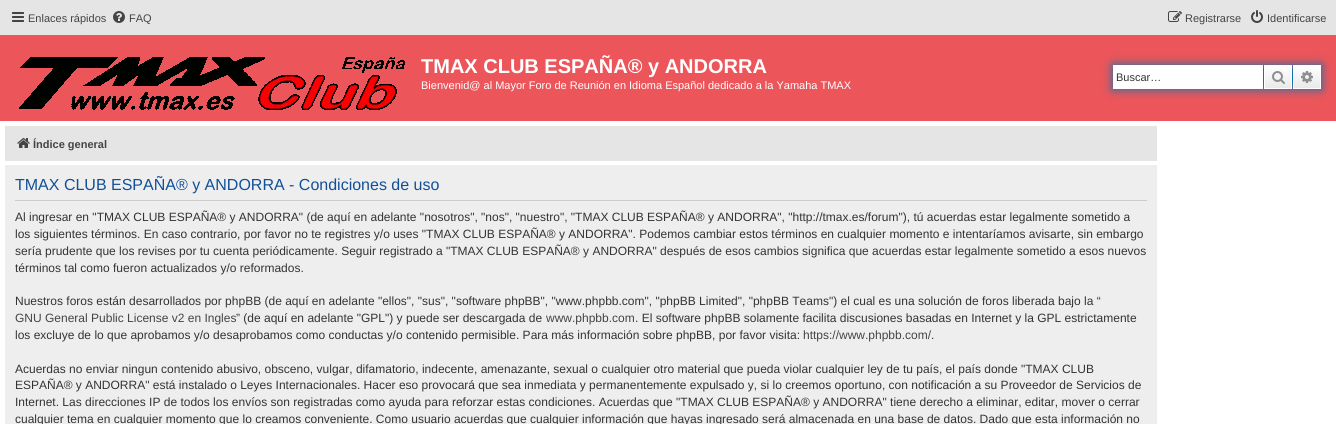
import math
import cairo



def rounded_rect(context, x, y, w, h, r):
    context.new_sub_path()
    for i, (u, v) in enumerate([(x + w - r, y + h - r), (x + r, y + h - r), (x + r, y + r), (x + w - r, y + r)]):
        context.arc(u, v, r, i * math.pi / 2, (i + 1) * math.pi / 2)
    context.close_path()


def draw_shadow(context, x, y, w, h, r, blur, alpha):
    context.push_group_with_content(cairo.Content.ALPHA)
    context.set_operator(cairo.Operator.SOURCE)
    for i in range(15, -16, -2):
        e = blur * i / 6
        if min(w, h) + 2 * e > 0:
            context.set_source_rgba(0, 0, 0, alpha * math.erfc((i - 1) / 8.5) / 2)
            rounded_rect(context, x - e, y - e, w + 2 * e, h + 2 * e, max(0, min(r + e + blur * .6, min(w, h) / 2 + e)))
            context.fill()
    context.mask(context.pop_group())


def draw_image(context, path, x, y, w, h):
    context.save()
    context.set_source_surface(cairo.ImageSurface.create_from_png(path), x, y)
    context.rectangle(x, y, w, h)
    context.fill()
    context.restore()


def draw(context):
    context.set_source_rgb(1, 1, 1)
    context.paint()
    context.set_source_rgb(229 / 255, 229 / 255, 229 / 255)
    context.rectangle(0, 0, 1336, 35)
    context.fill()
    draw_image(context, "images/1.png", 12, 12, 12, 10)
    draw_image(context, "images/2.png", 113, 11, 12, 12)
    draw_image(context, "images/3.png", 1168, 11, 14, 11)
    draw_image(context, "images/4.png", 1251, 10, 12, 13)
    context.set_source_rgb(236 / 255, 85 / 255, 90 / 255)
    context.rectangle(0, 35, 1336, 86)
    context.fill()
    draw_image(context, "images/5.png", 19, 57, 386, 53)
    context.set_source_rgb(0, 117 / 255, 176 / 255)
    draw_shadow(context, 1113, 65, 208, 24, 0, 5, 1)
    context.set_source_rgb(1, 1, 1)
    context.rectangle(1113, 65, 150, 24)
    context.fill()
    gradient = cairo.LinearGradient(1278, 65, 1278, 89)
    gradient.add_color_stop_rgba(0, 1, 1, 1, 1)
    gradient.add_color_stop_rgba(1, 233 / 255, 233 / 255, 233 / 255, 1)
    context.set_source(gradient)
    context.rectangle(1265, 66, 26, 22)
    context.fill()
    context.rectangle(1264.5, 65.5, 27, 23)
    context.set_source_rgb(1, 1, 1)
    context.set_line_width(1)
    context.stroke()
    draw_image(context, "images/6.png", 1272, 71, 13, 13)
    gradient = cairo.LinearGradient(1307, 65, 1307, 89)
    gradient.add_color_stop_rgba(0, 1, 1, 1, 1)
    gradient.add_color_stop_rgba(1, 233 / 255, 233 / 255, 233 / 255, 1)
    context.set_source(gradient)
    context.rectangle(1294, 66, 26, 22)
    context.fill()
    context.rectangle(1293.5, 65.5, 27, 23)
    context.set_source_rgb(1, 1, 1)
    context.stroke()
    draw_image(context, "images/7.png", 1301, 71, 12, 12)
    context.set_source_rgb(229 / 255, 229 / 255, 229 / 255)
    context.rectangle(5, 126, 1152, 35)
    context.fill()
    draw_image(context, "images/8.png", 17, 138, 13, 10)
    context.set_source_rgb(238 / 255, 238 / 255, 238 / 255)
    context.rectangle(5, 165, 1152, 259)
    context.fill()
    context.set_source_rgb(204 / 255, 204 / 255, 204 / 255)
    context.rectangle(15, 200, 1132, 1)
    context.fill()
    context.select_font_face("Liberation Sans")
    context.set_font_size(11)
    context.set_source_rgb(68 / 255, 68 / 255, 68 / 255)
    context.move_to(28, 22)
    context.show_text("Enlaces rápidos")
    context.move_to(129, 22)
    context.show_text("FAQ")
    context.move_to(1185, 22)
    context.show_text("Registrarse")
    context.move_to(1267, 22)
    context.show_text("Identificarse")
    context.select_font_face("Liberation Sans", cairo.FontSlant.NORMAL, cairo.FontWeight.BOLD)
    context.set_font_size(20)
    context.set_source_rgb(1, 1, 1)
    context.move_to(421, 73)
    context.show_text("TMAX CLUB ESPAÑA® y ANDORRA")
    context.select_font_face("Liberation Sans")
    context.set_font_size(11)
    context.move_to(421, 89)
    context.show_text("Bienvenid@ al Mayor Foro de Reunión en Idioma Español dedicado a la Yamaha TMAX")
    context.set_source_rgb(51 / 255, 51 / 255, 51 / 255)
    context.move_to(1116, 81)
    context.show_text("Buscar…")
    context.select_font_face("Liberation Sans", cairo.FontSlant.NORMAL, cairo.FontWeight.BOLD)
    context.set_source_rgb(68 / 255, 68 / 255, 68 / 255)
    context.move_to(33, 148)
    context.show_text("Índice general")
    context.select_font_face("Liberation Sans")
    context.set_font_size(16)
    context.set_source_rgb(17 / 255, 80 / 255, 152 / 255)
    context.move_to(15, 190)
    context.show_text("TMAX CLUB ESPAÑA® y ANDORRA - Condiciones de uso")
    context.set_font_size(12)
    context.set_source_rgb(51 / 255, 51 / 255, 51 / 255)
    context.move_to(15, 221)
    context.show_text("Al ingresar en \"TMAX CLUB ESPAÑA® y ANDORRA\" (de aquí en adelante \"nosotros\", \"nos\", \"nuestro\", \"TMAX CLUB ESPAÑA® y ANDORRA\", \"http://tmax.es/forum\"), tú acuerdas estar legalmente sometido a")
    context.move_to(15, 238)
    context.show_text("los siguientes términos. En caso contrario, por favor no te registres y/o uses \"TMAX CLUB ESPAÑA® y ANDORRA\". Podemos cambiar estos términos en cualquier momento e intentaríamos avisarte, sin embargo")
    context.move_to(15, 255)
    context.show_text("sería prudente que los revises por tu cuenta periódicamente. Seguir registrado a \"TMAX CLUB ESPAÑA® y ANDORRA\" después de esos cambios significa que acuerdas estar legalmente sometido a esos nuevos")
    context.move_to(15, 272)
    context.show_text("términos tal como fueron actualizados y/o reformados.")
    context.move_to(15, 305)
    context.show_text("Nuestros foros están desarrollados por phpBB (de aquí en adelante \"ellos\", \"sus\", \"software phpBB\", \"www.phpbb.com\", \"phpBB Limited\", \"phpBB Teams\") el cual es una solución de foros liberada bajo la “")
    context.set_source_rgb(68 / 255, 68 / 255, 68 / 255)
    context.move_to(15, 322)
    context.show_text("GNU General Public License v2 en Ingles")
    context.set_source_rgb(51 / 255, 51 / 255, 51 / 255)
    context.move_to(236, 322)
    context.show_text("” (de aquí en adelante \"GPL\") y puede ser descargada de")
    context.set_source_rgb(68 / 255, 68 / 255, 68 / 255)
    context.move_to(546, 322)
    context.show_text("www.phpbb.com")
    context.set_source_rgb(51 / 255, 51 / 255, 51 / 255)
    context.move_to(635, 322)
    context.show_text(". El software phpBB solamente facilita discusiones basadas en Internet y la GPL estrictamente")
    context.move_to(15, 339)
    context.show_text("los excluye de lo que aprobamos y/o desaprobamos como conductas y/o contenido permisible. Para más información sobre phpBB, por favor visita:")
    context.set_source_rgb(68 / 255, 68 / 255, 68 / 255)
    context.move_to(803, 339)
    context.show_text("https://www.phpbb.com/")
    context.set_source_rgb(51 / 255, 51 / 255, 51 / 255)
    context.move_to(931, 339)
    context.show_text(".")
    context.move_to(15, 373)
    context.show_text("Acuerdas no enviar ningun contenido abusivo, obsceno, vulgar, difamatorio, indecente, amenazante, sexual o cualquier otro material que pueda violar cualquier ley de tu país, el país donde \"TMAX CLUB")
    context.move_to(15, 389)
    context.show_text("ESPAÑA® y ANDORRA\" está instalado o Leyes Internacionales. Hacer eso provocará que sea inmediata y permanentemente expulsado y, si lo creemos oportuno, con notificación a su Proveedor de Servicios de")
    context.move_to(15, 406)
    context.show_text("Internet. Las direcciones IP de todos los envíos son registradas como ayuda para reforzar estas condiciones. Acuerdas que \"TMAX CLUB ESPAÑA® y ANDORRA\" tiene derecho a eliminar, editar, mover o cerrar")
    context.move_to(15, 423)
    context.show_text("cualquier tema en cualquier momento que lo creamos conveniente. Como usuario acuerdas que cualquier información que hayas ingresado será almacenada en una base de datos. Dado que esta información no")


surface = cairo.ImageSurface(cairo.Format.RGB24, 1336, 424)
context = cairo.Context(surface)
options = cairo.FontOptions()
options.set_hint_metrics(cairo.HintMetrics.OFF)
options.set_hint_style(cairo.HintStyle.NONE)
context.set_font_options(options)
context.set_miter_limit(4)
draw(context)
surface.write_to_png("out.png")
